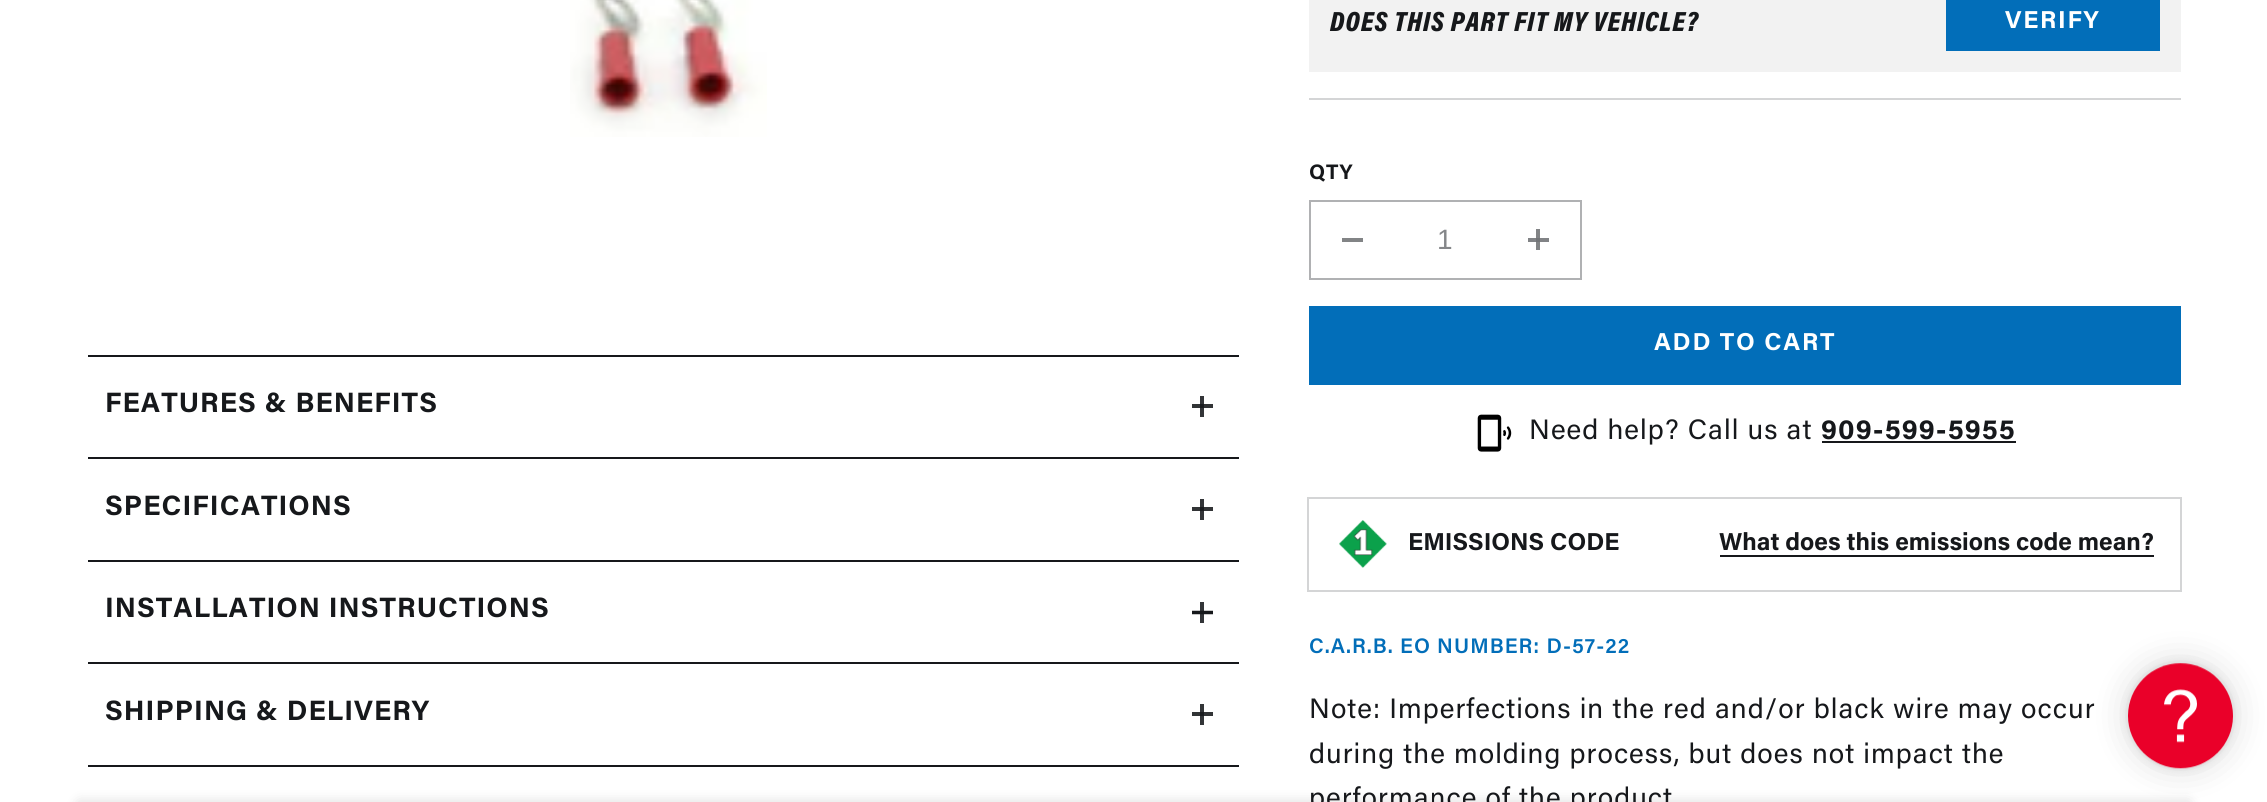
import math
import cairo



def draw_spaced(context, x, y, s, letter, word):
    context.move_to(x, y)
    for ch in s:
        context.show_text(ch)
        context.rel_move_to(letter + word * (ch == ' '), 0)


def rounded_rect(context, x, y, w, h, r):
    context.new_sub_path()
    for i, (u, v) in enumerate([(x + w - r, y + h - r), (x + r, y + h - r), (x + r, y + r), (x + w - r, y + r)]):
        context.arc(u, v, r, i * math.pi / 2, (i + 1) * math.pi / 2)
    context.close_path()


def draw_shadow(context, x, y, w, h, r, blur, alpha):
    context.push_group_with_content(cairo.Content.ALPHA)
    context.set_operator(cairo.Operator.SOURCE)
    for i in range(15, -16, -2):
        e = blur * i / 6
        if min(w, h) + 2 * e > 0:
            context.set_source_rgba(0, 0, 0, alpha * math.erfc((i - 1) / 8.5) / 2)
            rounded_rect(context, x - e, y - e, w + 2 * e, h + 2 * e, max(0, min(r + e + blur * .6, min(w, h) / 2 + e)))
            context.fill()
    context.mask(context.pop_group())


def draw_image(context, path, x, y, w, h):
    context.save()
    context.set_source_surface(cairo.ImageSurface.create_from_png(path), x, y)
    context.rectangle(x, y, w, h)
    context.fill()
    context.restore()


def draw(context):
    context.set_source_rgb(1, 1, 1)
    context.paint()
    context.set_source_rgb(129 / 255, 131 / 255, 134 / 255)
    context.rectangle(1528, 238, 21, 4)
    context.fill()
    context.set_source_rgb(50 / 255, 52 / 255, 54 / 255)
    context.rectangle(1192, 712, 21, 4)
    context.fill()
    context.rectangle(1192, 507, 21, 4)
    context.fill()
    context.rectangle(1192, 404, 21, 4)
    context.fill()
    draw_image(context, "images/1.png", 570, 0, 197, 137)
    context.set_source_rgb(22 / 255, 24 / 255, 27 / 255)
    context.rectangle(88, 355, 1151, 2)
    context.fill()
    context.rectangle(88, 457, 1151, 2)
    context.fill()
    context.set_source_rgb(51 / 255, 53 / 255, 56 / 255)
    context.rectangle(1200, 396, 4, 21)
    context.fill()
    context.set_source_rgb(25 / 255, 27 / 255, 30 / 255)
    context.rectangle(1200, 404, 4, 4)
    context.fill()
    context.set_source_rgb(22 / 255, 24 / 255, 27 / 255)
    context.rectangle(88, 560, 1151, 2)
    context.fill()
    context.set_source_rgb(51 / 255, 53 / 255, 56 / 255)
    context.rectangle(1200, 499, 4, 21)
    context.fill()
    context.set_source_rgb(25 / 255, 27 / 255, 30 / 255)
    context.rectangle(1200, 507, 4, 4)
    context.fill()
    context.set_source_rgb(22 / 255, 24 / 255, 27 / 255)
    context.rectangle(88, 662, 1151, 2)
    context.fill()
    context.set_source_rgb(51 / 255, 53 / 255, 56 / 255)
    context.rectangle(1200, 602, 4, 21)
    context.fill()
    context.new_path()
    context.move_to(1192, 612.5)
    context.line_to(1213, 612.5)
    context.set_source_rgb(22 / 255, 24 / 255, 27 / 255)
    context.set_line_width(3.5)
    context.stroke()
    context.rectangle(88, 765, 1151, 2)
    context.fill()
    context.set_source_rgb(51 / 255, 53 / 255, 56 / 255)
    context.rectangle(1200, 704, 4, 21)
    context.fill()
    context.set_source_rgb(25 / 255, 27 / 255, 30 / 255)
    context.rectangle(1200, 712, 4, 4)
    context.fill()
    context.set_source_rgb(242 / 255, 242 / 255, 242 / 255)
    context.rectangle(1309, 0, 872, 72)
    context.fill()
    context.set_source_rgb(2 / 255, 110 / 255, 185 / 255)
    context.rectangle(1946, 0, 214, 51)
    context.fill()
    context.set_source_rgb(212 / 255, 213 / 255, 214 / 255)
    context.rectangle(1309, 98, 872, 2)
    context.fill()
    context.set_source_rgb(130 / 255, 132 / 255, 134 / 255)
    context.rectangle(1342, 238, 21, 4)
    context.fill()
    context.rectangle(1536, 229, 4, 21)
    context.fill()
    context.set_source_rgb(114 / 255, 116 / 255, 119 / 255)
    context.rectangle(1536, 238, 4, 4)
    context.fill()
    context.rectangle(1310, 201, 271, 78)
    context.set_source_rgb(176 / 255, 177 / 255, 179 / 255)
    context.set_line_width(2)
    context.stroke()
    context.set_source_rgb(2 / 255, 110 / 255, 185 / 255)
    context.rectangle(1309, 306, 872, 79)
    context.fill()
    draw_image(context, "images/2.png", 1477, 414, 35, 38)
    context.set_source_rgb(22 / 255, 24 / 255, 27 / 255)
    context.rectangle(1822, 441, 194, 2)
    context.fill()
    context.rectangle(1308, 498, 873, 93)
    context.set_source_rgb(212 / 255, 213 / 255, 214 / 255)
    context.stroke()
    draw_image(context, "images/3.png", 1339, 520, 48, 48)
    context.set_source_rgb(22 / 255, 24 / 255, 27 / 255)
    context.rectangle(1720, 555, 434, 2)
    context.fill()
    context.set_source_rgb(0, 0, 0)
    draw_shadow(context, 79, 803, 2110, 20, 0, 7, 0.16)
    draw_shadow(context, 2128, 663, 105, 105, 52.5, 17.5, 0.15)
    draw_shadow(context, 2128, 663, 105, 105, 52.5, 4.5, 0.1)
    draw_image(context, "images/4.png", 2128, 663, 105, 106)
    context.select_font_face("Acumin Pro", cairo.FontSlant.NORMAL, cairo.FontWeight.BOLD)
    context.set_font_size(28)
    context.set_source_rgb(22 / 255, 24 / 255, 27 / 255)
    draw_spaced(context, 105, 412, "FEATURES & BENEFITS", 1.05, 0)
    draw_spaced(context, 105, 515, "SPECIFICATIONS", 1.05, 0)
    draw_spaced(context, 105, 617, "INSTALLATION INSTRUCTIONS", 1.05, 0)
    draw_spaced(context, 105, 720, "SHIPPING & DELIVERY", 1.05, 0)
    context.select_font_face("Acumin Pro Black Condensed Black", cairo.FontSlant.ITALIC)
    draw_spaced(context, 1330, 31, "DOES THIS PART FIT MY VEHICLE?", 1.05, 0)
    context.select_font_face("Acumin Pro", cairo.FontSlant.NORMAL, cairo.FontWeight.BOLD)
    context.set_font_size(24.5)
    context.set_source_rgb(1, 1, 1)
    draw_spaced(context, 2005, 28, "VERIFY", 1.75, 0)
    context.set_font_size(21)
    context.set_source_rgb(22 / 255, 24 / 255, 27 / 255)
    draw_spaced(context, 1309, 179, "QTY", 1, 0)
    context.select_font_face("Liberation Sans")
    context.set_font_size(28)
    context.set_source_rgb(133 / 255, 135 / 255, 138 / 255)
    context.move_to(1437, 249)
    context.show_text("1")
    context.select_font_face("Acumin Pro", cairo.FontSlant.NORMAL, cairo.FontWeight.BOLD)
    context.set_font_size(24.5)
    context.set_source_rgb(1, 1, 1)
    draw_spaced(context, 1654, 350, "ADD TO CART", 1.75, 0)
    context.select_font_face("Acumin Pro")
    context.set_font_size(28)
    context.set_source_rgb(22 / 255, 24 / 255, 27 / 255)
    draw_spaced(context, 1529, 439, "Need help? Call us at", 1.05, 0)
    context.select_font_face("Acumin Pro", cairo.FontSlant.NORMAL, cairo.FontWeight.BOLD)
    draw_spaced(context, 1821, 439, "909-599-5955", 1.05, 0)
    context.set_font_size(24.5)
    context.move_to(1408, 550)
    context.show_text("EMISSIONS CODE")
    context.move_to(1719, 550)
    context.show_text("What does this emissions code mean?")
    context.select_font_face("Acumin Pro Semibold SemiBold")
    context.set_font_size(21)
    context.set_source_rgb(2 / 255, 110 / 255, 185 / 255)
    draw_spaced(context, 1309, 653, "C.A.R.B. EO NUMBER: D-57-22", 1.05, 0)
    context.select_font_face("Acumin Pro")
    context.set_font_size(28)
    context.set_source_rgb(22 / 255, 24 / 255, 27 / 255)
    draw_spaced(context, 1309, 718, "Note: Imperfections in the red and/or black wire may occur", 1.05, 0)
    draw_spaced(context, 1309, 763, "during the molding process, but does not impact the", 1.05, 0)
    draw_spaced(context, 1309, 807, "performance of the product", 1.05, 0)


surface = cairo.ImageSurface(cairo.Format.RGB24, 2267, 802)
context = cairo.Context(surface)
options = cairo.FontOptions()
options.set_hint_metrics(cairo.HintMetrics.OFF)
options.set_hint_style(cairo.HintStyle.NONE)
context.set_font_options(options)
context.set_miter_limit(4)
draw(context)
surface.write_to_png("out.png")
